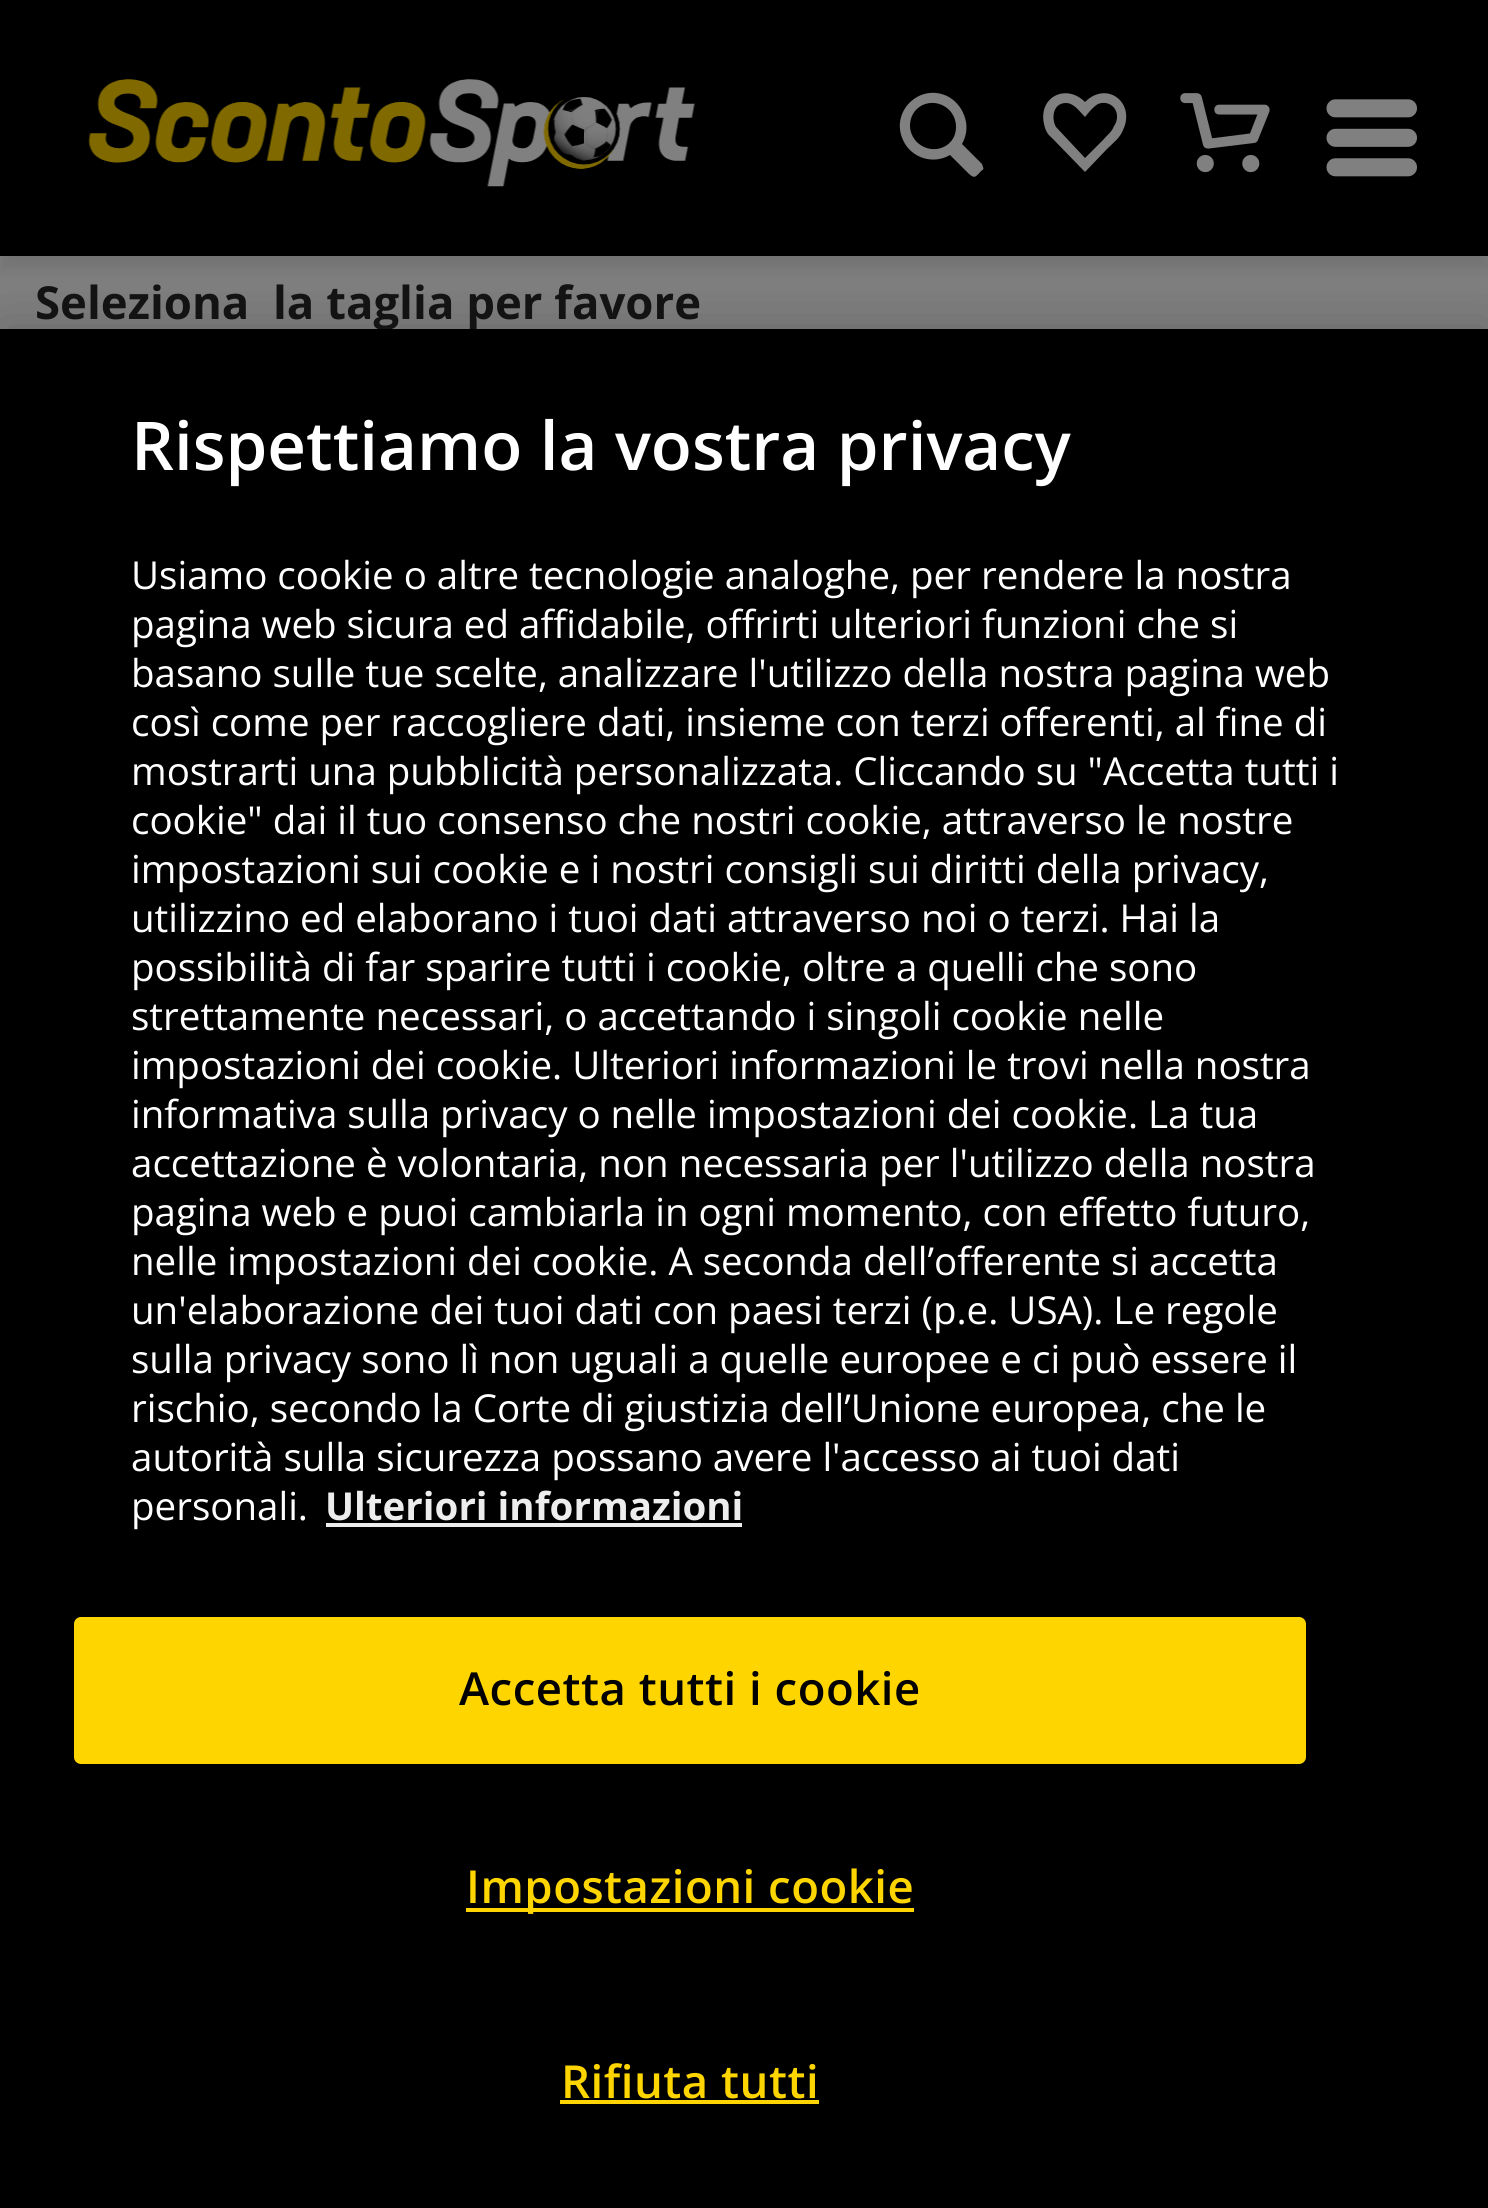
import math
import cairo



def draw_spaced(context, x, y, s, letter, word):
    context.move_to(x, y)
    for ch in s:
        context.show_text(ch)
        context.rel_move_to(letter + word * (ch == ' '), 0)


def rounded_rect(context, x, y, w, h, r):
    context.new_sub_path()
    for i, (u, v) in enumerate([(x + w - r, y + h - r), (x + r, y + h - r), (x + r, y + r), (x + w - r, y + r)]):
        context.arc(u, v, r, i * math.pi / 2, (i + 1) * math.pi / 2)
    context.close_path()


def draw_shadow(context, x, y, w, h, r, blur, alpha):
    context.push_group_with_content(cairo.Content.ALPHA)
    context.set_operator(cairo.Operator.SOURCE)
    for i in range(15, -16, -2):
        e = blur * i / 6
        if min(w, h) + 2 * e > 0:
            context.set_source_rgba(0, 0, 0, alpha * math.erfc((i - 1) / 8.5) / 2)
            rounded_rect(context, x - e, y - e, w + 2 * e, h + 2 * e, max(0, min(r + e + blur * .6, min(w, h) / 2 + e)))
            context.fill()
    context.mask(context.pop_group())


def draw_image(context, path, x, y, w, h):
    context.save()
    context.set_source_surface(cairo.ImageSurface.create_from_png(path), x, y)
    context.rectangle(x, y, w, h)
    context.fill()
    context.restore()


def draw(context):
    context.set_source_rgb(128 / 255, 128 / 255, 128 / 255)
    context.paint()
    context.set_source_rgb(0, 0, 0)
    draw_shadow(context, 0, 14, 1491, 256, 0, 7, 0.1)
    context.set_source_rgb(0, 0, 0)
    context.rectangle(0, 0, 1488, 256)
    context.fill()
    draw_image(context, "images/1.png", 88, 79, 607, 108)
    context.set_source_rgb(128 / 255, 128 / 255, 128 / 255)
    context.new_path()
    context.move_to(982, 164)
    context.line_to(962, 144)
    context.curve_to(967, 135, 968, 125, 964, 115)
    context.curve_to(961, 107, 955, 100, 947, 96)
    context.curve_to(919, 83, 890, 112, 903, 140)
    context.curve_to(911, 158, 933, 165, 950, 155)
    context.line_to(967, 172)
    context.curve_to(974, 179, 975, 178, 981, 171)
    context.curve_to(983, 170, 984, 169, 983, 167)
    context.close_path()
    context.move_to(910, 126)
    context.curve_to(910, 103, 937, 95, 951, 112)
    context.curve_to(954, 116, 956, 121, 956, 127)
    context.curve_to(956, 149, 929, 157, 915, 140)
    context.curve_to(912, 136, 910, 131, 910, 126)
    context.close_path()
    context.fill()
    context.new_path()
    context.move_to(1051, 137)
    context.curve_to(1047, 134, 1045, 129, 1044, 124)
    context.curve_to(1038, 97, 1066, 83, 1085, 102)
    context.curve_to(1107, 80, 1136, 103, 1123, 130)
    context.curve_to(1120, 138, 1113, 143, 1107, 149)
    context.line_to(1085, 172)
    context.close_path()
    context.move_to(1066, 103)
    context.curve_to(1053, 103, 1051, 118, 1056, 127)
    context.line_to(1085, 158)
    context.line_to(1103, 140)
    context.curve_to(1107, 135, 1112, 132, 1114, 126)
    context.curve_to(1117, 122, 1118, 116, 1116, 111)
    context.curve_to(1113, 104, 1105, 101, 1098, 104)
    context.curve_to(1093, 107, 1089, 112, 1085, 117)
    context.curve_to(1080, 112, 1074, 103, 1066, 103)
    context.close_path()
    context.fill()
    draw_image(context, "images/2.png", 1180, 93, 90, 80)
    draw_image(context, "images/3.png", 1326, 99, 91, 78)
    context.set_source_rgb(0, 0, 0)
    draw_shadow(context, 0, 329, 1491, 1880, 0, 31.5, 0.2)
    context.select_font_face("Open Sans", cairo.FontSlant.NORMAL, cairo.FontWeight.BOLD)
    context.set_font_size(45.5)
    context.set_source_rgb(19 / 255, 19 / 255, 19 / 255)
    context.move_to(35, 319)
    context.show_text("Seleziona  la taglia per favore")
    context.set_source_rgb(0, 0, 0)
    context.rectangle(0, 329, 1488, 1879)
    context.fill()
    context.select_font_face("Open Sans SemiBold")
    context.set_font_size(67.25)
    context.set_source_rgb(1, 1, 1)
    context.move_to(131, 470)
    context.show_text("Rispettiamo la vostra privacy")
    context.select_font_face("Open Sans")
    context.set_font_size(38.5)
    context.move_to(131, 589)
    context.show_text("Usiamo cookie o altre tecnologie analoghe, per rendere la nostra")
    context.move_to(131, 638)
    context.show_text("pagina web sicura ed affidabile, offrirti ulteriori funzioni che si")
    context.move_to(131, 687)
    context.show_text("basano sulle tue scelte, analizzare l'utilizzo della nostra pagina web")
    context.move_to(131, 736)
    context.show_text("così come per raccogliere dati, insieme con terzi offerenti, al fine di")
    context.move_to(131, 785)
    context.show_text("mostrarti una pubblicità personalizzata. Cliccando su \"Accetta tutti i")
    context.move_to(131, 834)
    context.show_text("cookie\" dai il tuo consenso che nostri cookie, attraverso le nostre")
    context.move_to(131, 883)
    context.show_text("impostazioni sui cookie e i nostri consigli sui diritti della privacy,")
    context.move_to(131, 932)
    context.show_text("utilizzino ed elaborano i tuoi dati attraverso noi o terzi. Hai la")
    context.move_to(131, 981)
    context.show_text("possibilità di far sparire tutti i cookie, oltre a quelli che sono")
    context.move_to(131, 1030)
    context.show_text("strettamente necessari, o accettando i singoli cookie nelle")
    context.move_to(131, 1079)
    context.show_text("impostazioni dei cookie. Ulteriori informazioni le trovi nella nostra")
    context.move_to(131, 1128)
    context.show_text("informativa sulla privacy o nelle impostazioni dei cookie. La tua")
    context.move_to(131, 1177)
    context.show_text("accettazione è volontaria, non necessaria per l'utilizzo della nostra")
    context.move_to(131, 1226)
    context.show_text("pagina web e puoi cambiarla in ogni momento, con effetto futuro,")
    context.move_to(131, 1275)
    context.show_text("nelle impostazioni dei cookie. A seconda dell’offerente si accetta")
    context.move_to(131, 1324)
    context.show_text("un'elaborazione dei tuoi dati con paesi terzi (p.e. USA). Le regole")
    context.move_to(131, 1373)
    context.show_text("sulla privacy sono lì non uguali a quelle europee e ci può essere il")
    context.move_to(131, 1422)
    context.show_text("rischio, secondo la Corte di giustizia dell’Unione europea, che le")
    context.move_to(131, 1471)
    context.show_text("autorità sulla sicurezza possano avere l'accesso ai tuoi dati")
    context.move_to(131, 1520)
    context.show_text("personali.")
    context.select_font_face("Open Sans", cairo.FontSlant.NORMAL, cairo.FontWeight.BOLD)
    context.set_source_rgb(237 / 255, 237 / 255, 237 / 255)
    context.move_to(325, 1520)
    context.show_text("Ulteriori informazioni")
    context.rectangle(326, 1523, 416, 4)
    context.fill()
    context.set_source_rgb(1, 213 / 255, 0)
    rounded_rect(context, 76, 1619, 1228, 143, 5)
    context.fill_preserve()
    context.set_line_width(4)
    context.stroke()
    context.select_font_face("Open Sans SemiBold")
    context.set_font_size(45.5)
    context.set_source_rgb(0, 0, 0)
    draw_spaced(context, 459, 1705, "Accetta tutti i cookie", 0.5, 0)
    context.set_source_rgb(1, 213 / 255, 0)
    context.rectangle(466, 1908, 448, 4)
    context.fill()
    draw_spaced(context, 466, 1903, "Impostazioni cookie", 0.5, 0)
    draw_spaced(context, 561, 2098, "Rifiuta tutti", 0.5, 0)
    context.rectangle(560, 2100, 259, 4)
    context.fill()


surface = cairo.ImageSurface(cairo.Format.RGB24, 1488, 2208)
context = cairo.Context(surface)
options = cairo.FontOptions()
options.set_hint_metrics(cairo.HintMetrics.OFF)
options.set_hint_style(cairo.HintStyle.NONE)
context.set_font_options(options)
context.set_miter_limit(4)
draw(context)
surface.write_to_png("out.png")
